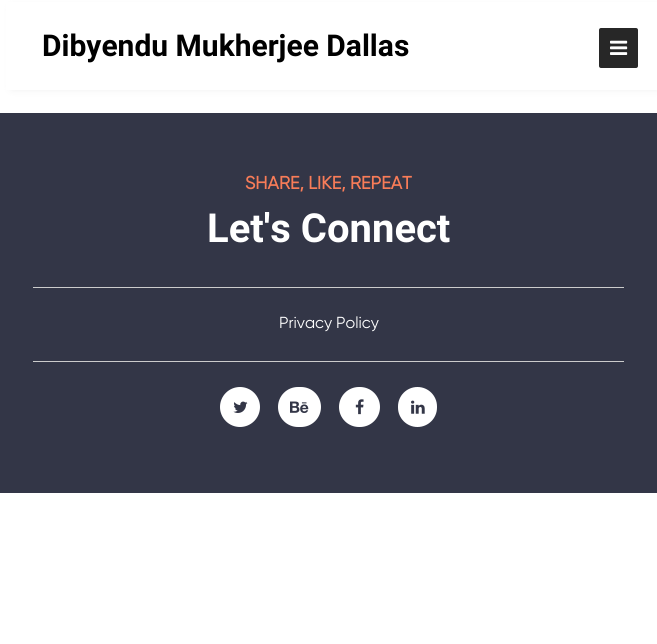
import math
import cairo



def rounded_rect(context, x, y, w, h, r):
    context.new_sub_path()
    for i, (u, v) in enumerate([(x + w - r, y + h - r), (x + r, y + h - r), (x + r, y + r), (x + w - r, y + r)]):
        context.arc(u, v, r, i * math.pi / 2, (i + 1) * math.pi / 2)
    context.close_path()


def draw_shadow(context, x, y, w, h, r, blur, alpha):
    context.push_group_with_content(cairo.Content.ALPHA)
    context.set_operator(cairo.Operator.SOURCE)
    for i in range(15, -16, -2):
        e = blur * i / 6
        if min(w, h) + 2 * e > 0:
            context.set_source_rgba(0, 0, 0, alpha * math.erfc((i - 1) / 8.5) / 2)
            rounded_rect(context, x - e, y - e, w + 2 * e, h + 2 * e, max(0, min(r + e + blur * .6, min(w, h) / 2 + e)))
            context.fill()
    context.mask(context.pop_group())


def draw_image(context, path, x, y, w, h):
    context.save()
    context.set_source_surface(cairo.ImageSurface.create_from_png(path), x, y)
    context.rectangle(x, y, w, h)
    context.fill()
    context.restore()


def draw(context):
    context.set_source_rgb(1, 1, 1)
    context.paint()
    context.set_source_rgb(128 / 255, 128 / 255, 128 / 255)
    draw_shadow(context, 12, 8, 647, 80, 0, 4.5, 0.19)
    context.set_source_rgb(1, 1, 1)
    context.rectangle(6, 2, 651, 88)
    context.fill()
    context.set_source_rgb(39 / 255, 39 / 255, 39 / 255)
    rounded_rect(context, 599, 28, 39, 40, 2)
    context.fill()
    draw_image(context, "images/1.png", 610, 40, 18, 15)
    context.set_source_rgb(51 / 255, 54 / 255, 71 / 255)
    context.rectangle(0, 113, 657, 380)
    context.fill()
    context.set_source_rgb(204 / 255, 204 / 255, 204 / 255)
    context.rectangle(33, 287, 591, 1)
    context.fill()
    context.rectangle(33, 361, 591, 1)
    context.fill()
    context.set_source_rgb(1, 1, 1)
    context.arc(240, 407, 20, 0, 2 * math.pi)
    context.fill()
    draw_image(context, "images/2.png", 233, 401, 15, 12)
    rounded_rect(context, 278, 387, 43, 40, 20)
    context.fill()
    draw_image(context, "images/3.png", 290, 401, 19, 12)
    rounded_rect(context, 339, 387, 41, 40, 20)
    context.fill()
    draw_image(context, "images/4.png", 355, 399, 9, 16)
    rounded_rect(context, 398, 387, 39, 40, 19.5)
    context.fill()
    draw_image(context, "images/5.png", 411, 400, 14, 14)
    context.select_font_face("Roboto", cairo.FontSlant.NORMAL, cairo.FontWeight.BOLD)
    context.set_font_size(30)
    context.set_source_rgb(0, 0, 0)
    context.move_to(42, 56)
    context.show_text("Dibyendu Mukherjee Dallas")
    context.select_font_face("Gilroy", cairo.FontSlant.NORMAL, cairo.FontWeight.BOLD)
    context.set_font_size(18)
    context.set_source_rgb(248 / 255, 124 / 255, 88 / 255)
    context.move_to(245, 189)
    context.show_text("SHARE, LIKE, REPEAT")
    context.select_font_face("Roboto", cairo.FontSlant.NORMAL, cairo.FontWeight.BOLD)
    context.set_font_size(40)
    context.set_source_rgb(1, 1, 1)
    context.move_to(207, 242)
    context.show_text("Let's Connect")
    context.select_font_face("Gilroy")
    context.set_font_size(16)
    context.move_to(279, 328)
    context.show_text("Privacy Policy")


surface = cairo.ImageSurface(cairo.Format.RGB24, 657, 644)
context = cairo.Context(surface)
options = cairo.FontOptions()
options.set_hint_metrics(cairo.HintMetrics.OFF)
options.set_hint_style(cairo.HintStyle.NONE)
context.set_font_options(options)
context.set_miter_limit(4)
draw(context)
surface.write_to_png("out.png")
